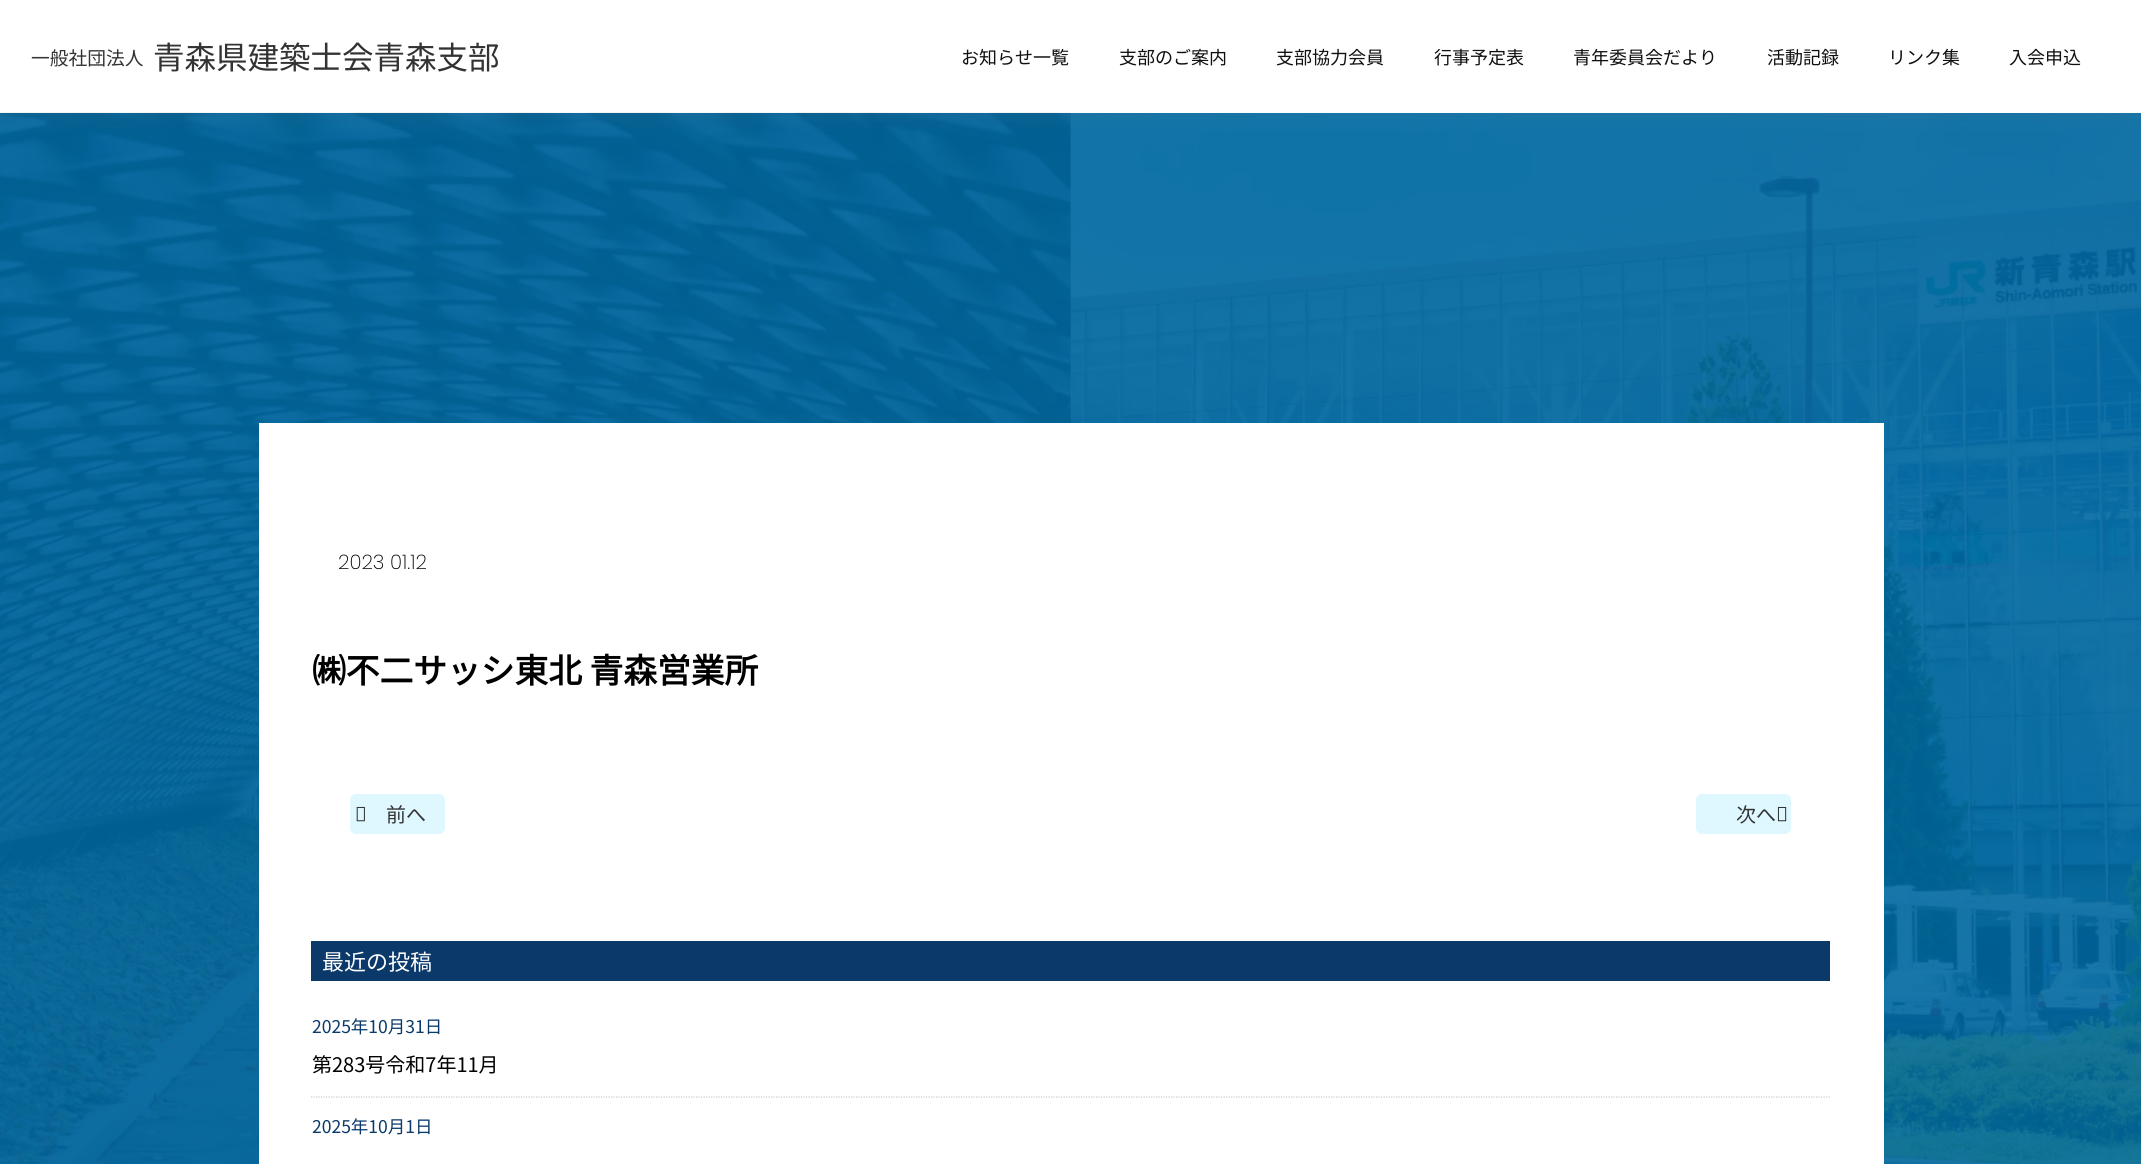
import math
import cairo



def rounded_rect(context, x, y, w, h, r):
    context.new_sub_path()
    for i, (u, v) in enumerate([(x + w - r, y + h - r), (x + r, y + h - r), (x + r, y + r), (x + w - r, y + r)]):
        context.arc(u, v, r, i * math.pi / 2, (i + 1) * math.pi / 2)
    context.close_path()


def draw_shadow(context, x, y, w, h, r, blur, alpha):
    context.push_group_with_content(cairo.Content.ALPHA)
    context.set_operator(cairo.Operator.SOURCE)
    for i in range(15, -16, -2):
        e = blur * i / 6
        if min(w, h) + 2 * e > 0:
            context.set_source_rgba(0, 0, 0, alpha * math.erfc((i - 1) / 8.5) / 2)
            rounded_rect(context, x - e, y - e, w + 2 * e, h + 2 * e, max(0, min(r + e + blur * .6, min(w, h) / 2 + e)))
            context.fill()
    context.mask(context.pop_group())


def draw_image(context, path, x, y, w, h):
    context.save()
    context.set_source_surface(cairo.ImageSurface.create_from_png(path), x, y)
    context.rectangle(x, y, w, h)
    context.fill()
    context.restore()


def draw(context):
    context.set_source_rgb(1, 1, 1)
    context.paint()
    draw_image(context, "images/1.png", 0, 112, 2141, 1052)
    context.save()
    context.set_fill_rule(cairo.FillRule.EVEN_ODD)
    context.new_path()
    context.move_to(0, 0)
    context.line_to(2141, 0)
    context.line_to(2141, 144)
    context.line_to(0, 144)
    context.close_path()
    context.move_to(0, 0)
    context.line_to(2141, 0)
    context.line_to(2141, 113)
    context.line_to(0, 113)
    context.close_path()
    context.clip()
    context.set_source_rgb(141 / 255, 141 / 255, 141 / 255)
    draw_shadow(context, 0, 1, 2141, 113, 0, 9.5, 0.14)
    context.restore()
    context.set_source_rgba(1, 1, 1, 0.9)
    context.rectangle(0, 112, 2141, 1)
    context.fill()
    context.set_source_rgb(1, 1, 1)
    context.rectangle(259, 423, 1625, 741)
    context.fill()
    context.set_source_rgb(223 / 255, 247 / 255, 1)
    rounded_rect(context, 350, 794, 95, 40, 6)
    context.fill()
    draw_image(context, "images/2.png", 356, 806, 9, 16)
    rounded_rect(context, 1696, 794, 95, 40, 6)
    context.fill()
    draw_image(context, "images/3.png", 1777, 806, 10, 16)
    context.set_source_rgb(11 / 255, 58 / 255, 106 / 255)
    context.rectangle(311, 941, 1519, 40)
    context.fill()
    context.new_path()
    context.move_to(311, 1097)
    context.line_to(1830, 1097)
    context.set_source_rgb(204 / 255, 204 / 255, 204 / 255)
    context.set_line_width(1.2)
    context.set_dash([1.25, 1.25])
    context.stroke()
    context.select_font_face("Noto Sans JP Thin")
    context.set_font_size(18.75)
    context.set_source_rgb(51 / 255, 51 / 255, 51 / 255)
    context.move_to(31, 65)
    context.show_text("一般社団法人")
    context.set_font_size(31.5)
    context.move_to(153, 69)
    context.show_text("青森県建築士会青森支部")
    context.set_font_size(18)
    context.set_source_rgb(16 / 255, 16 / 255, 16 / 255)
    context.move_to(961, 64)
    context.show_text("お知らせ一覧")
    context.move_to(1119, 64)
    context.show_text("支部のご案内")
    context.move_to(1276, 64)
    context.show_text("支部協力会員")
    context.move_to(1434, 64)
    context.show_text("行事予定表")
    context.move_to(1573, 64)
    context.show_text("青年委員会だより")
    context.move_to(1767, 64)
    context.show_text("活動記録")
    context.move_to(1888, 64)
    context.show_text("リンク集")
    context.move_to(2009, 64)
    context.show_text("入会申込")
    context.select_font_face("Poppins ExtraLight")
    context.set_font_size(20)
    context.set_source_rgb(0, 0, 0)
    context.move_to(338, 569)
    context.show_text("2023 01.12")
    context.select_font_face("Noto Sans JP", cairo.FontSlant.NORMAL, cairo.FontWeight.BOLD)
    context.set_font_size(33.75)
    context.move_to(312, 683)
    context.show_text("㈱不二サッシ東北 青森営業所")
    context.select_font_face("Noto Sans JP Thin")
    context.set_font_size(20)
    context.set_source_rgb(51 / 255, 51 / 255, 51 / 255)
    context.move_to(386, 822)
    context.show_text("前へ")
    context.move_to(1736, 822)
    context.show_text("次へ")
    context.set_font_size(22)
    context.set_source_rgb(1, 1, 1)
    context.move_to(322, 970)
    context.show_text("最近の投稿")
    context.set_font_size(17.5)
    context.set_source_rgb(11 / 255, 58 / 255, 106 / 255)
    context.move_to(312, 1033)
    context.show_text("2025年10月31日")
    context.set_font_size(20)
    context.set_source_rgb(0, 0, 0)
    context.move_to(312, 1072)
    context.show_text("第283号令和7年11月")
    context.set_font_size(17.5)
    context.set_source_rgb(11 / 255, 58 / 255, 106 / 255)
    context.move_to(312, 1133)
    context.show_text("2025年10月1日")


surface = cairo.ImageSurface(cairo.Format.RGB24, 2141, 1164)
context = cairo.Context(surface)
options = cairo.FontOptions()
options.set_hint_metrics(cairo.HintMetrics.OFF)
options.set_hint_style(cairo.HintStyle.NONE)
context.set_font_options(options)
context.set_miter_limit(4)
draw(context)
surface.write_to_png("out.png")
